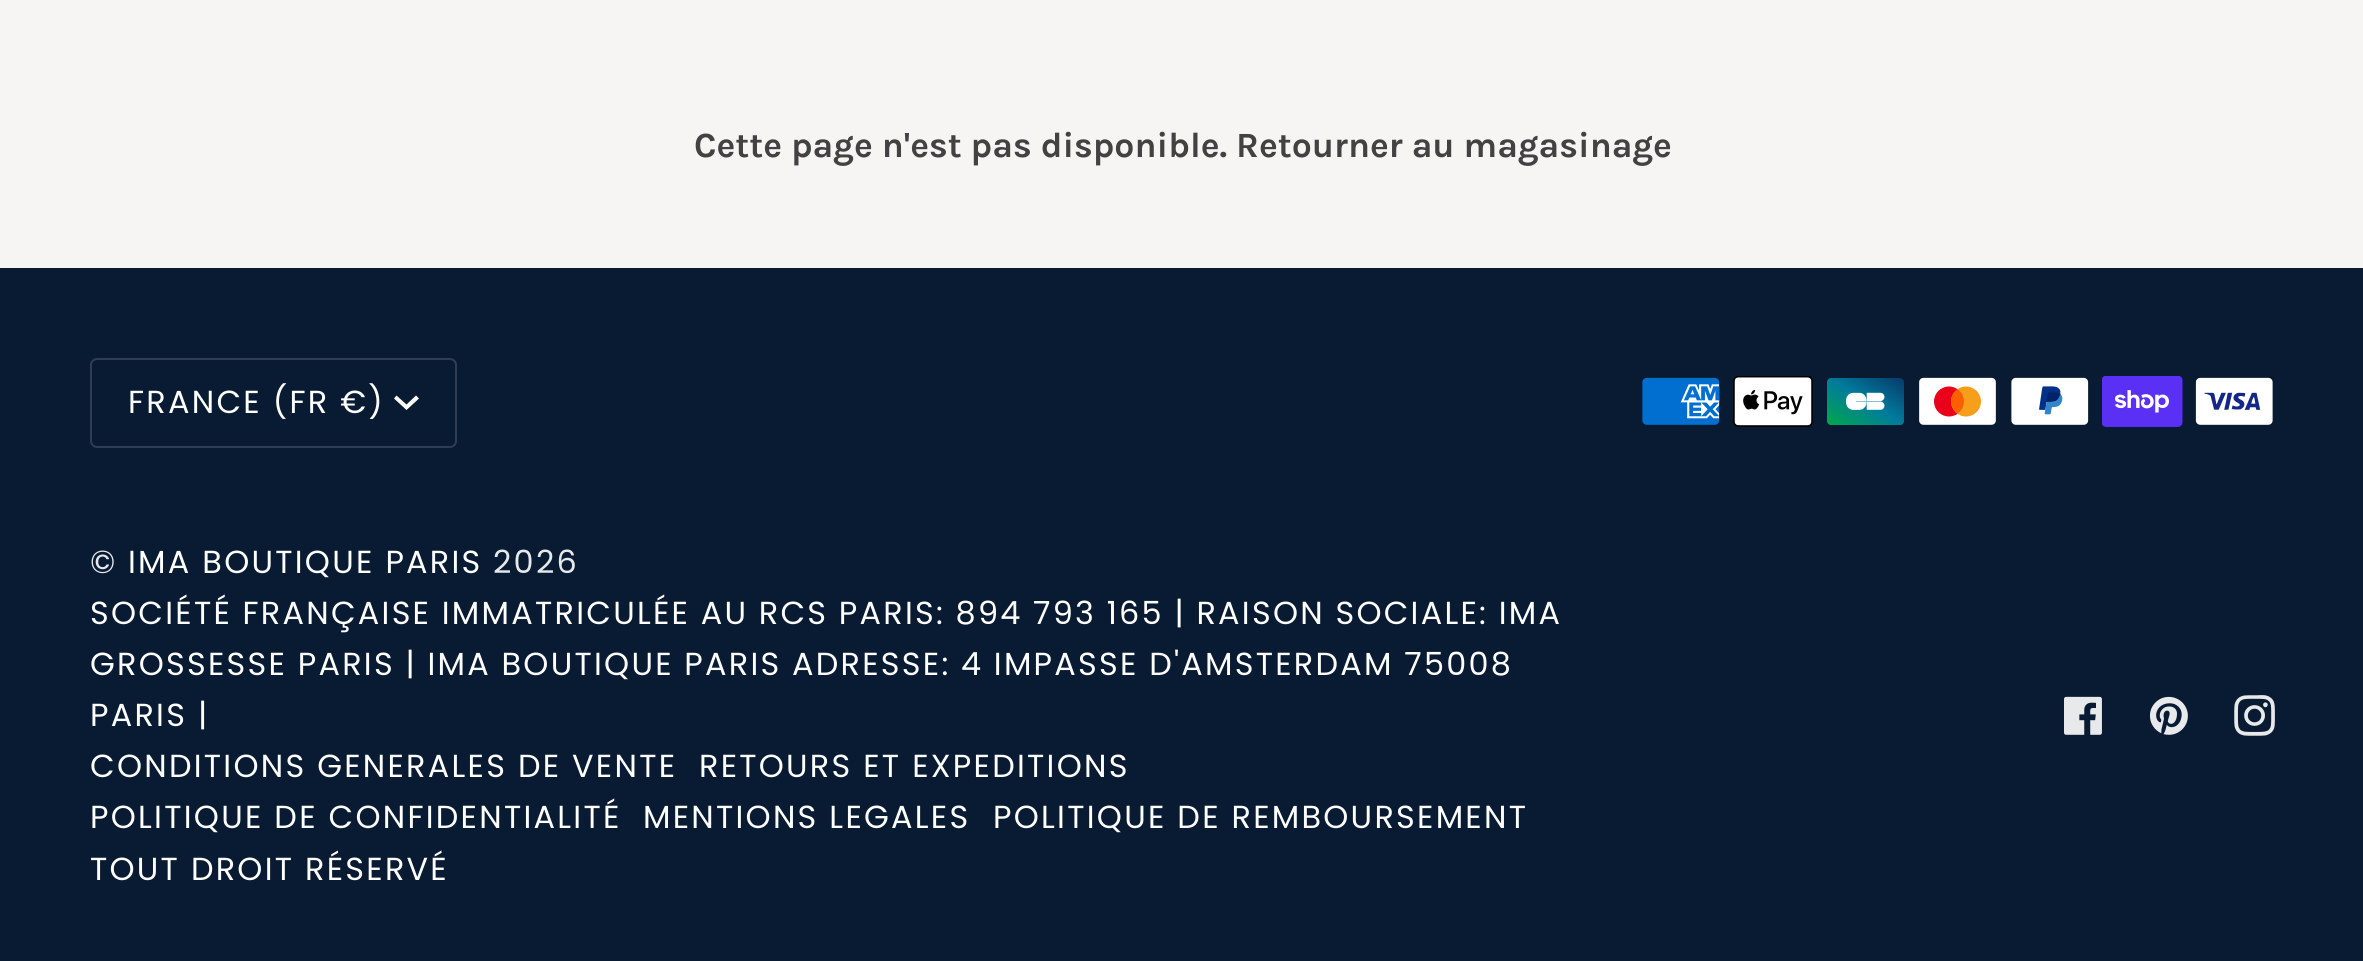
import math
import cairo



def draw_spaced(context, x, y, s, letter, word):
    context.move_to(x, y)
    for ch in s:
        context.show_text(ch)
        context.rel_move_to(letter + word * (ch == ' '), 0)


def rounded_rect(context, x, y, w, h, r):
    context.new_sub_path()
    for i, (u, v) in enumerate([(x + w - r, y + h - r), (x + r, y + h - r), (x + r, y + r), (x + w - r, y + r)]):
        context.arc(u, v, r, i * math.pi / 2, (i + 1) * math.pi / 2)
    context.close_path()


def draw_image(context, path, x, y, w, h):
    context.save()
    context.set_source_surface(cairo.ImageSurface.create_from_png(path), x, y)
    context.rectangle(x, y, w, h)
    context.fill()
    context.restore()


def draw(context):
    context.set_source_rgb(247 / 255, 245 / 255, 244 / 255)
    context.paint()
    context.set_source_rgb(9 / 255, 27 / 255, 51 / 255)
    context.rectangle(0, 268, 2363, 693)
    context.fill()
    rounded_rect(context, 91, 359, 365, 88, 6)
    context.set_source_rgb(46 / 255, 61 / 255, 82 / 255)
    context.stroke()
    context.set_source_rgb(1, 1, 1)
    context.set_fill_rule(cairo.FillRule.EVEN_ODD)
    context.new_path()
    context.move_to(394, 398.5)
    context.line_to(396.5, 395.5)
    context.line_to(406.5, 404.5)
    context.line_to(416, 395.5)
    context.line_to(419, 398.5)
    context.line_to(406.5, 410)
    context.close_path()
    context.fill()
    draw_image(context, "images/1.png", 1642, 377, 78, 48)
    draw_image(context, "images/2.png", 1733, 376, 80, 51)
    draw_image(context, "images/3.png", 1827, 378, 77, 47)
    draw_image(context, "images/4.png", 1919, 377, 77, 48)
    draw_image(context, "images/5.png", 2011, 377, 78, 48)
    draw_image(context, "images/6.png", 2102, 376, 81, 51)
    draw_image(context, "images/7.png", 2195, 377, 78, 48)
    draw_image(context, "images/8.png", 2064, 696, 38, 39)
    draw_image(context, "images/9.png", 2149, 696, 39, 39)
    draw_image(context, "images/10.png", 2234, 695, 41, 41)
    context.select_font_face("Karla", cairo.FontSlant.NORMAL, cairo.FontWeight.BOLD)
    context.set_font_size(35.45)
    context.set_source_rgb(66 / 255, 66 / 255, 66 / 255)
    context.move_to(694, 157)
    context.show_text("Cette page n'est pas disponible. Retourner au magasinage")
    context.select_font_face("Poppins")
    context.set_font_size(31.9)
    context.set_source_rgb(1, 1, 1)
    draw_spaced(context, 128, 413, "FRANCE (FR €)", 2.25, 0)
    context.set_source_rgb(230 / 255, 232 / 255, 235 / 255)
    draw_spaced(context, 90, 573, "©", 2.25, 0)
    context.set_source_rgb(1, 1, 1)
    draw_spaced(context, 128, 573, "IMA BOUTIQUE PARIS", 2.25, 0)
    context.set_source_rgb(230 / 255, 232 / 255, 235 / 255)
    draw_spaced(context, 493, 573, "2026", 2.25, 0)
    context.set_source_rgb(1, 1, 1)
    draw_spaced(context, 90, 624, "SOCIÉTÉ FRANÇAISE IMMATRICULÉE AU RCS PARIS: 894 793 165 | RAISON SOCIALE: IMA", 2.25, -0.25)
    draw_spaced(context, 90, 675, "GROSSESSE PARIS | IMA BOUTIQUE PARIS ADRESSE: 4 IMPASSE D'AMSTERDAM 75008", 2.25, -0.25)
    draw_spaced(context, 90, 726, "PARIS |", 2.25, 0)
    draw_spaced(context, 90, 777, "CONDITIONS GENERALES DE VENTE", 2.25, 0)
    draw_spaced(context, 699, 777, "RETOURS ET EXPEDITIONS", 2.25, 0)
    draw_spaced(context, 90, 828, "POLITIQUE DE CONFIDENTIALITÉ", 2.25, 0)
    draw_spaced(context, 643, 828, "MENTIONS LEGALES", 2.25, 0)
    draw_spaced(context, 993, 828, "POLITIQUE DE REMBOURSEMENT", 2.25, 0)
    draw_spaced(context, 90, 880, "TOUT DROIT RÉSERVÉ", 2.25, 0)


surface = cairo.ImageSurface(cairo.Format.RGB24, 2363, 961)
context = cairo.Context(surface)
options = cairo.FontOptions()
options.set_hint_metrics(cairo.HintMetrics.OFF)
options.set_hint_style(cairo.HintStyle.NONE)
context.set_font_options(options)
context.set_miter_limit(4)
draw(context)
surface.write_to_png("out.png")
